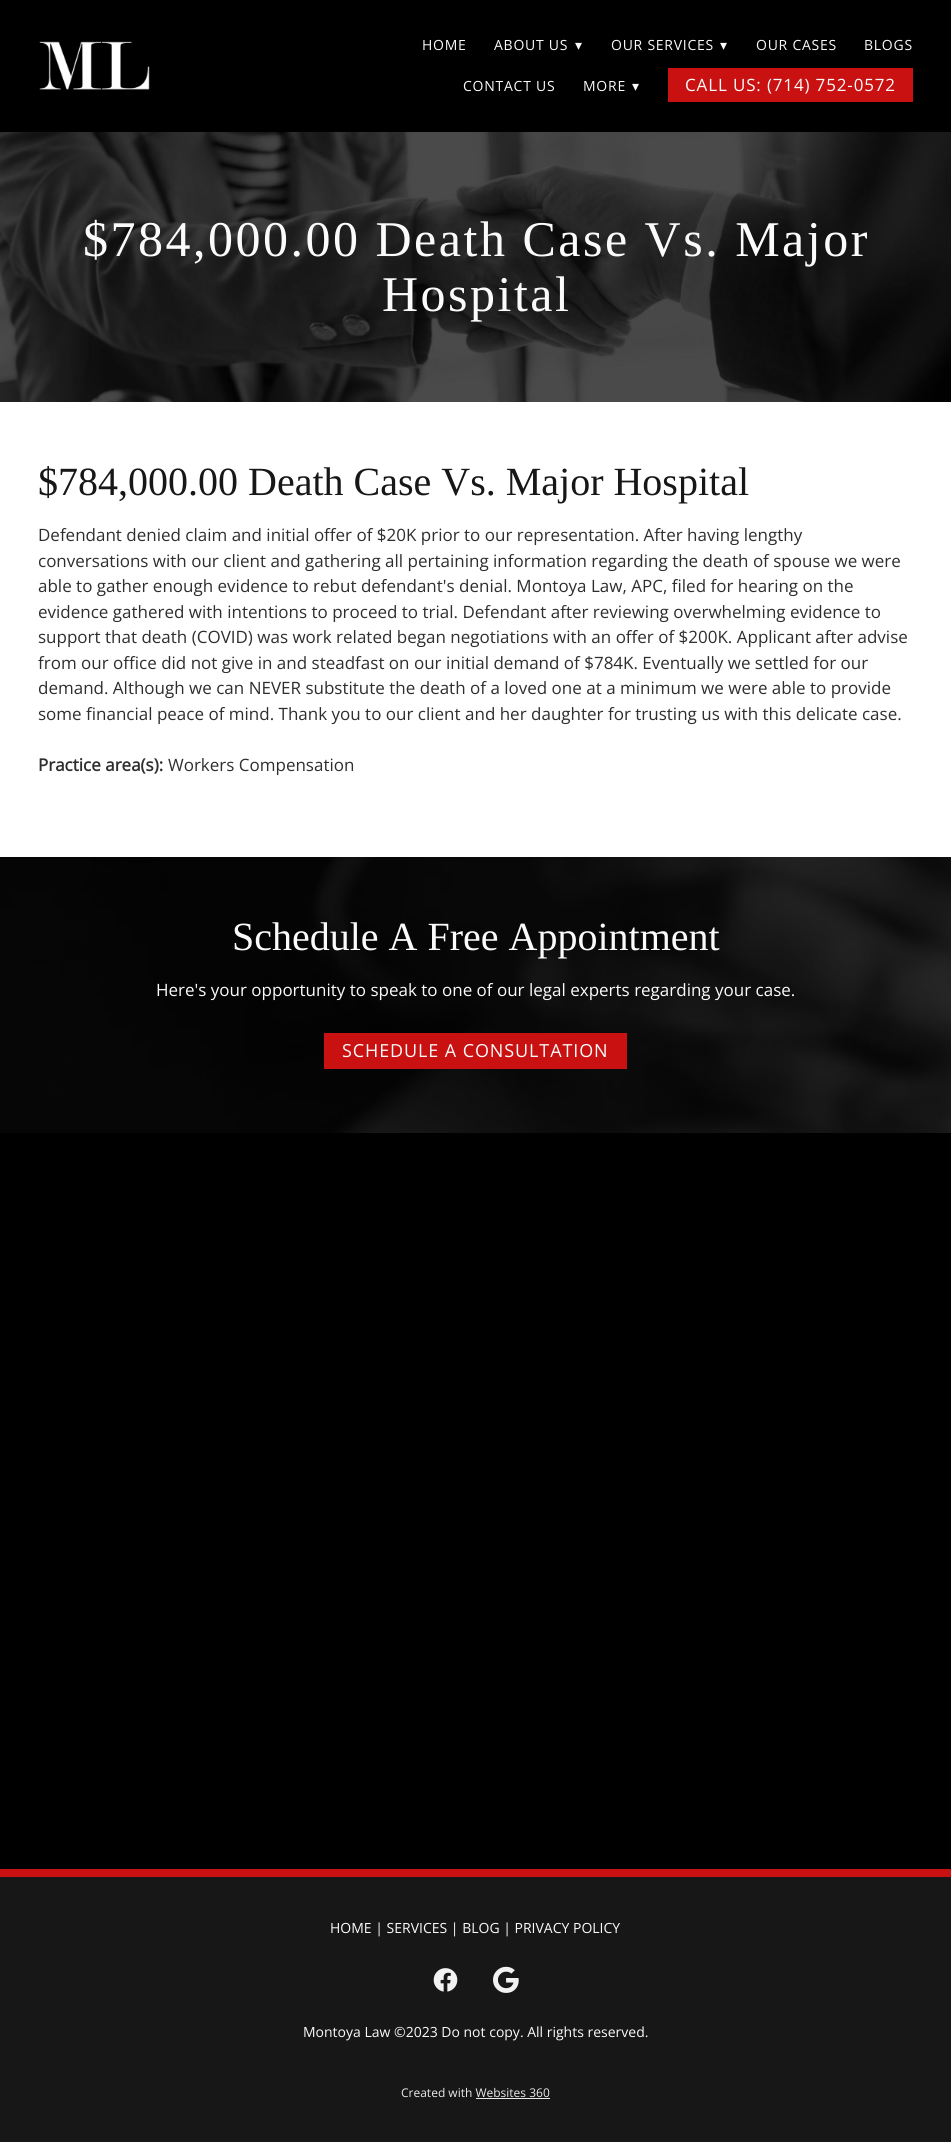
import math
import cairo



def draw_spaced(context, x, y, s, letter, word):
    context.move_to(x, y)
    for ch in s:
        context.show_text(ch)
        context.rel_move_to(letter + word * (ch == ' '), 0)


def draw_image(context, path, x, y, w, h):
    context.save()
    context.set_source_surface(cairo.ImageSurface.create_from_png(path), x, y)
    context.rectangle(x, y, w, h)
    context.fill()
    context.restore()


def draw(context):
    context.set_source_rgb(0, 0, 0)
    context.paint()
    draw_image(context, "images/1.png", 39, 41, 111, 49)
    context.set_source_rgb(200 / 255, 17 / 255, 16 / 255)
    context.rectangle(668, 68, 245, 34)
    context.fill()
    draw_image(context, "images/2.png", 0, 132, 951, 270)
    context.set_source_rgb(1, 1, 1)
    context.rectangle(0, 402, 951, 455)
    context.fill()
    draw_image(context, "images/3.png", 0, 857, 951, 276)
    context.set_source_rgb(200 / 255, 17 / 255, 16 / 255)
    context.rectangle(324, 1033, 303, 36)
    context.fill()
    context.set_source_rgb(23 / 255, 23 / 255, 23 / 255)
    context.rectangle(0, 1877, 951, 265)
    context.fill()
    context.set_source_rgb(200 / 255, 17 / 255, 16 / 255)
    context.rectangle(0, 1869, 951, 8)
    context.fill()
    draw_image(context, "images/4.png", 433, 1968, 25, 24)
    draw_image(context, "images/5.png", 493, 1966, 26, 27)
    context.set_source_rgb(235 / 255, 235 / 255, 235 / 255)
    context.rectangle(476, 2098, 74, 1)
    context.fill()
    context.select_font_face("Open Sans")
    context.set_font_size(14)
    context.set_source_rgb(251 / 255, 251 / 255, 251 / 255)
    draw_spaced(context, 422, 50, "HOME", 0.75, 0)
    draw_spaced(context, 494, 50, "ABOUT US", 0.75, 0)
    context.select_font_face("DejaVu Sans")
    draw_spaced(context, 575, 50, "▾", 0.75, 0)
    context.select_font_face("Open Sans")
    draw_spaced(context, 611, 50, "OUR SERVICES", 0.75, 0)
    context.select_font_face("DejaVu Sans")
    draw_spaced(context, 720, 50, "▾", 0.75, 0)
    context.select_font_face("Open Sans")
    draw_spaced(context, 756, 50, "OUR CASES", 0.75, 0)
    draw_spaced(context, 864, 50, "BLOGS", 0.75, 0)
    draw_spaced(context, 463, 91, "CONTACT US", 0.75, 0)
    draw_spaced(context, 583, 91, "MORE", 0.75, 0)
    context.select_font_face("DejaVu Sans")
    draw_spaced(context, 632, 91, "▾", 0.75, 0)
    context.select_font_face("Open Sans")
    context.set_font_size(17)
    draw_spaced(context, 685, 91, "CALL US: (714) 752-0572", 0.85, 0)
    context.select_font_face("Liberation Serif")
    context.set_font_size(50)
    draw_spaced(context, 83, 256, "$784,000.00 Death Case Vs. Major", 2.5, 0)
    draw_spaced(context, 382, 311, "Hospital", 2.5, 0)
    context.set_font_size(40)
    context.set_source_rgb(23 / 255, 23 / 255, 23 / 255)
    context.move_to(38, 495)
    context.show_text("$784,000.00 Death Case Vs. Major Hospital")
    context.select_font_face("Open Sans")
    context.set_font_size(17)
    context.set_source_rgb(46 / 255, 46 / 255, 46 / 255)
    context.move_to(38, 541)
    context.show_text("Defendant denied claim and initial offer of $20K prior to our representation. After having lengthy")
    context.move_to(38, 567)
    context.show_text("conversations with our client and gathering all pertaining information regarding the death of spouse we were")
    context.move_to(38, 592)
    context.show_text("able to gather enough evidence to rebut defendant's denial. Montoya Law, APC, filed for hearing on the")
    context.move_to(38, 618)
    context.show_text("evidence gathered with intentions to proceed to trial. Defendant after reviewing overwhelming evidence to")
    context.move_to(38, 643)
    context.show_text("support that death (COVID) was work related began negotiations with an offer of $200K. Applicant after advise")
    context.move_to(38, 669)
    context.show_text("from our office did not give in and steadfast on our initial demand of $784K. Eventually we settled for our")
    context.move_to(38, 694)
    context.show_text("demand. Although we can NEVER substitute the death of a loved one at a minimum we were able to provide")
    context.move_to(38, 720)
    context.show_text("some financial peace of mind. Thank you to our client and her daughter for trusting us with this delicate case.")
    context.select_font_face("Open Sans", cairo.FontSlant.NORMAL, cairo.FontWeight.BOLD)
    context.move_to(38, 771)
    context.show_text("Practice area(s):")
    context.select_font_face("Open Sans")
    context.move_to(168, 771)
    context.show_text("Workers Compensation")
    context.select_font_face("Liberation Serif")
    context.set_font_size(40)
    context.set_source_rgb(251 / 255, 251 / 255, 251 / 255)
    context.move_to(232, 950)
    context.show_text("Schedule A Free Appointment")
    context.select_font_face("Open Sans")
    context.set_font_size(17)
    context.move_to(156, 996)
    context.show_text("Here's your opportunity to speak to one of our legal experts regarding your case.")
    context.set_font_size(18)
    draw_spaced(context, 342, 1057, "SCHEDULE A CONSULTATION", 0.9, 0)
    context.set_font_size(14)
    context.move_to(330, 1933)
    context.show_text("HOME | SERVICES | BLOG | PRIVACY POLICY")
    context.move_to(303, 2037)
    context.show_text("Montoya Law ©2023 Do not copy. All rights reserved.")
    context.set_font_size(12)
    context.set_source_rgb(235 / 255, 235 / 255, 235 / 255)
    context.move_to(401, 2097)
    context.show_text("Created with Websites 360")


surface = cairo.ImageSurface(cairo.Format.RGB24, 951, 2142)
context = cairo.Context(surface)
options = cairo.FontOptions()
options.set_hint_metrics(cairo.HintMetrics.OFF)
options.set_hint_style(cairo.HintStyle.NONE)
context.set_font_options(options)
context.set_miter_limit(4)
draw(context)
surface.write_to_png("out.png")
